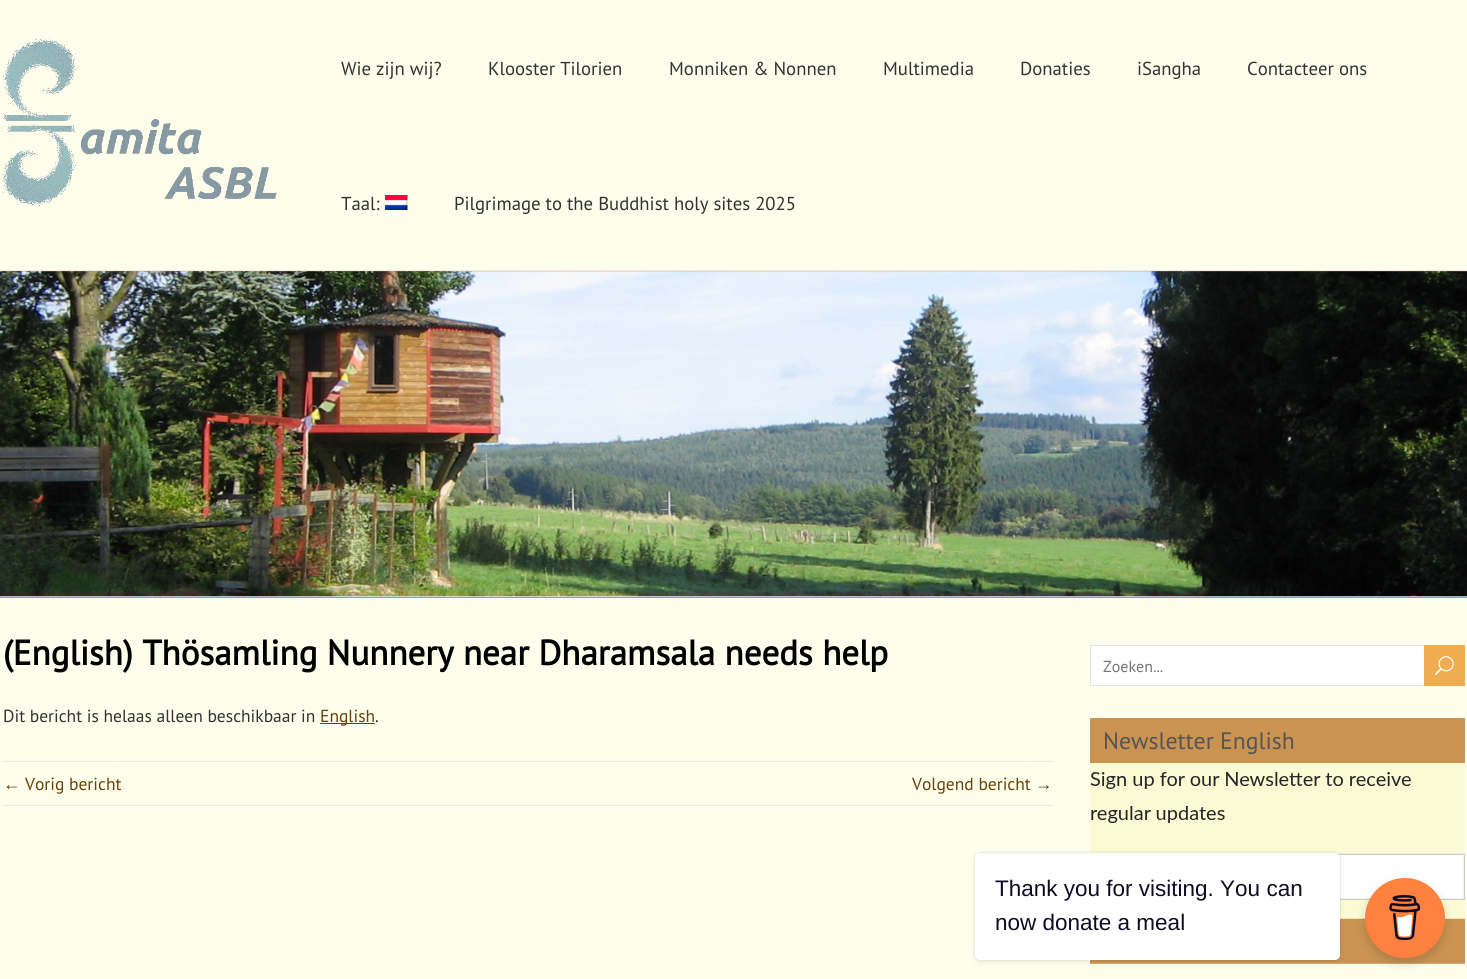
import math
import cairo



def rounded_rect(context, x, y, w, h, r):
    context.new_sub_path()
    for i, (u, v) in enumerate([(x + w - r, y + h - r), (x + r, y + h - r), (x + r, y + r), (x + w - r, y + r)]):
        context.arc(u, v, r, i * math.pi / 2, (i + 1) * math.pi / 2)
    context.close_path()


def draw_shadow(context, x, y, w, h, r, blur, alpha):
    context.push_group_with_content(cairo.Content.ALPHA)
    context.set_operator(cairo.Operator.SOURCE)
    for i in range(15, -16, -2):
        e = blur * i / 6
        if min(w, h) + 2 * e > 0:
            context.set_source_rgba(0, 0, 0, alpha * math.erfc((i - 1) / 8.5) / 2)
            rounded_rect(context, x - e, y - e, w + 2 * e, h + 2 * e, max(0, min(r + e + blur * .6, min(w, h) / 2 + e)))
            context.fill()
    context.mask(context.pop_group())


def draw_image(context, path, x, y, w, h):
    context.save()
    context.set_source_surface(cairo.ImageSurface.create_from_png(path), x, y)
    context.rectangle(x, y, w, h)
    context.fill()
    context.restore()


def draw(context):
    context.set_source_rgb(253 / 255, 253 / 255, 236 / 255)
    context.paint()
    context.set_source_rgb(235 / 255, 235 / 255, 235 / 255)
    context.rectangle(0, 270, 1467, 1)
    context.fill()
    draw_image(context, "images/1.png", 2, 38, 275, 168)
    draw_image(context, "images/2.png", 385, 195, 23, 15)
    context.set_source_rgb(202 / 255, 147 / 255, 82 / 255)
    context.rectangle(0, 271, 1467, 327)
    context.fill()
    context.set_source_rgb(235 / 255, 235 / 255, 235 / 255)
    context.rectangle(0, 596, 1467, 1)
    context.fill()
    draw_image(context, "images/3.png", 0, 271, 1467, 326)
    context.set_source_rgb(104 / 255, 66 / 255, 10 / 255)
    context.rectangle(320, 723, 55, 1)
    context.fill()
    context.set_source_rgb(232 / 255, 232 / 255, 232 / 255)
    context.rectangle(3, 761, 1050, 1)
    context.fill()
    context.rectangle(3, 805, 1050, 1)
    context.fill()
    context.set_source_rgb(1, 1, 1)
    context.rectangle(1091, 646, 333, 39)
    context.fill()
    context.rectangle(1090.5, 645.5, 373, 40)
    context.set_source_rgb(227 / 255, 227 / 255, 227 / 255)
    context.set_line_width(1)
    context.stroke()
    context.set_source_rgb(238 / 255, 173 / 255, 81 / 255)
    context.rectangle(1424, 645, 41, 41)
    context.fill()
    draw_image(context, "images/4.png", 1435, 656, 19, 19)
    context.set_source_rgb(202 / 255, 147 / 255, 82 / 255)
    context.rectangle(1090, 718, 375, 45)
    context.fill()
    draw_image(context, "images/5.png", 1090, 763, 375, 201)
    context.set_source_rgb(0, 0, 0)
    draw_shadow(context, 975, 853, 365, 107, 5, 1, 0.15)
    draw_shadow(context, 975, 855, 365, 108, 5, 3, 0.05)
    context.set_source_rgb(1, 1, 1)
    rounded_rect(context, 975, 853, 365, 107, 5)
    context.fill()
    context.set_source_rgb(0, 0, 0)
    draw_shadow(context, 1365, 883, 80, 80, 40, 5, 0.15)
    context.set_source_rgb(1, 129 / 255, 63 / 255)
    context.arc(1405, 918, 40, 0, 2 * math.pi)
    context.fill()
    draw_image(context, "images/6.png", 1389, 895, 32, 45)
    context.select_font_face("PT Sans")
    context.set_font_size(18.75)
    context.set_source_rgb(51 / 255, 51 / 255, 51 / 255)
    context.move_to(341, 75)
    context.show_text("Wie zijn wij?")
    context.move_to(488, 75)
    context.show_text("Klooster Tilorien")
    context.move_to(669, 75)
    context.show_text("Monniken & Nonnen")
    context.move_to(883, 75)
    context.show_text("Multimedia")
    context.move_to(1020, 75)
    context.show_text("Donaties")
    context.move_to(1137, 75)
    context.show_text("iSangha")
    context.move_to(1247, 75)
    context.show_text("Contacteer ons")
    context.move_to(341, 210)
    context.show_text("Taal:")
    context.move_to(454, 210)
    context.show_text("Pilgrimage to the Buddhist holy sites 2025")
    context.select_font_face("PT Sans", cairo.FontSlant.NORMAL, cairo.FontWeight.BOLD)
    context.set_font_size(35)
    context.set_source_rgb(0, 0, 0)
    context.move_to(3, 665)
    context.show_text("(English) Thösamling Nunnery near Dharamsala needs help")
    context.select_font_face("PT Sans")
    context.set_font_size(17.5)
    context.set_source_rgb(51 / 255, 51 / 255, 51 / 255)
    context.move_to(3, 722)
    context.show_text("Dit bericht is helaas alleen beschikbaar in")
    context.set_source_rgb(104 / 255, 66 / 255, 10 / 255)
    context.move_to(320, 722)
    context.show_text("English")
    context.set_source_rgb(51 / 255, 51 / 255, 51 / 255)
    context.move_to(375, 722)
    context.show_text(".")
    context.select_font_face("Liberation Sans")
    context.set_source_rgb(104 / 255, 66 / 255, 10 / 255)
    context.move_to(3, 790)
    context.show_text("←")
    context.select_font_face("PT Sans")
    context.move_to(25, 790)
    context.show_text("Vorig bericht")
    context.move_to(912, 790)
    context.show_text("Volgend bericht")
    context.select_font_face("Liberation Sans")
    context.move_to(1035, 790)
    context.show_text("→")
    context.select_font_face("PT Sans")
    context.set_font_size(16)
    context.set_source_rgb(117 / 255, 117 / 255, 117 / 255)
    context.move_to(1103, 672)
    context.show_text("Zoeken...")
    context.set_font_size(23.75)
    context.set_source_rgb(85 / 255, 85 / 255, 85 / 255)
    context.move_to(1103, 749)
    context.show_text("Newsletter English")
    context.select_font_face("Liberation Sans")
    context.set_font_size(22.5)
    context.set_source_rgb(13 / 255, 12 / 255, 34 / 255)
    context.move_to(995, 896)
    context.show_text("Thank you for visiting. You can")
    context.move_to(995, 930)
    context.show_text("now donate a meal")


surface = cairo.ImageSurface(cairo.Format.RGB24, 1467, 979)
context = cairo.Context(surface)
options = cairo.FontOptions()
options.set_hint_metrics(cairo.HintMetrics.OFF)
options.set_hint_style(cairo.HintStyle.NONE)
context.set_font_options(options)
context.set_miter_limit(4)
draw(context)
surface.write_to_png("out.png")
